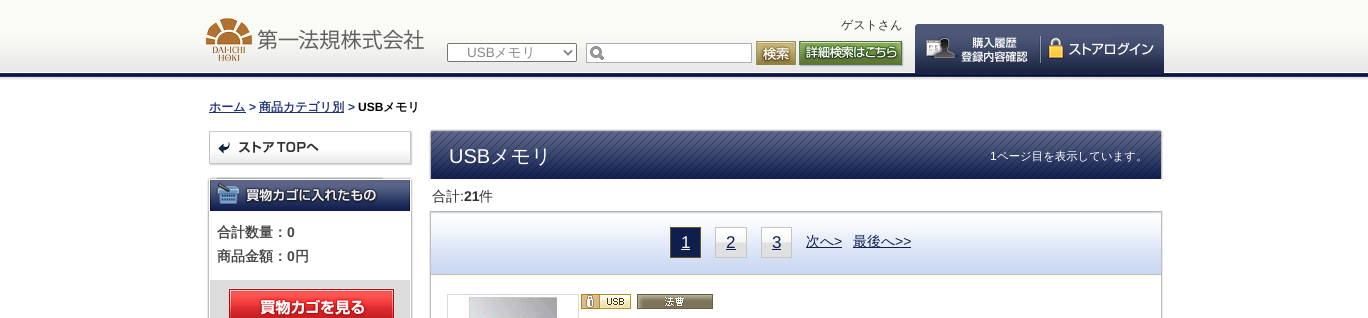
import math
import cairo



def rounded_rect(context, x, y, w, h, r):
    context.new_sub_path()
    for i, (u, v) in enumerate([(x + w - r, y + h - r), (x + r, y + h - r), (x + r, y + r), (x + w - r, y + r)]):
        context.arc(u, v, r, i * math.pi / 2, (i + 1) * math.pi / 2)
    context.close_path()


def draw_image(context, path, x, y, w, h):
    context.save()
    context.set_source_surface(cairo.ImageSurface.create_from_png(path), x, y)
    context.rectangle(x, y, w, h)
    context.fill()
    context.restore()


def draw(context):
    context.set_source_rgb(1, 1, 1)
    context.paint()
    draw_image(context, "images/1.png", 0, 0, 1368, 80)
    draw_image(context, "images/2.png", 206, 18, 218, 43)
    context.set_source_rgb(1, 1, 1)
    rounded_rect(context, 447.5, 43.5, 129, 18, 1.5)
    context.fill_preserve()
    context.set_source_rgb(118 / 255, 118 / 255, 118 / 255)
    context.set_line_width(1)
    context.stroke()
    context.new_path()
    context.move_to(564, 50.5)
    context.line_to(568, 54.5)
    context.line_to(572, 50.5)
    context.set_source_rgb(136 / 255, 136 / 255, 136 / 255)
    context.set_line_width(2)
    context.stroke()
    context.set_source_rgb(1, 1, 1)
    context.rectangle(586.5, 43.5, 165, 19)
    context.fill_preserve()
    context.set_source_rgb(173 / 255, 173 / 255, 181 / 255)
    context.set_line_width(1)
    context.stroke()
    draw_image(context, "images/3.png", 590, 46, 14, 14)
    draw_image(context, "images/4.png", 756, 41, 40, 24)
    draw_image(context, "images/5.png", 799, 41, 105, 26)
    draw_image(context, "images/6.png", 915, 24, 125, 49)
    draw_image(context, "images/7.png", 1040, 24, 124, 49)
    context.set_source_rgb(29 / 255, 52 / 255, 121 / 255)
    context.rectangle(209, 112, 37, 1)
    context.fill()
    context.rectangle(259, 112, 85, 1)
    context.fill()
    draw_image(context, "images/8.png", 209, 131, 204, 35)
    draw_image(context, "images/9.png", 207, 177, 206, 34)
    draw_image(context, "images/10.png", 207, 211, 206, 107)
    context.set_source_rgb(220 / 255, 220 / 255, 220 / 255)
    context.rectangle(210, 280, 200, 38)
    context.fill()
    draw_image(context, "images/11.png", 228, 288, 167, 30)
    draw_image(context, "images/12.png", 429, 129, 734, 50)
    draw_image(context, "images/13.png", 429, 211, 734, 107)
    draw_image(context, "images/14.png", 431, 211, 730, 63)
    context.set_source_rgb(198 / 255, 191 / 255, 165 / 255)
    context.rectangle(431, 274, 730, 1)
    context.fill()
    context.set_source_rgb(15 / 255, 30 / 255, 77 / 255)
    context.rectangle(670.5, 227.5, 30, 30)
    context.fill_preserve()
    context.set_source_rgb(100 / 255, 86 / 255, 37 / 255)
    context.stroke()
    context.set_source_rgb(1, 1, 1)
    context.rectangle(681, 249, 9, 1)
    context.fill()
    draw_image(context, "images/15.png", 716, 228, 30, 29)
    context.rectangle(715.5, 227.5, 31, 30)
    context.set_source_rgb(197 / 255, 197 / 255, 197 / 255)
    context.stroke()
    context.set_source_rgb(15 / 255, 30 / 255, 77 / 255)
    context.rectangle(726, 249, 10, 1)
    context.fill()
    draw_image(context, "images/16.png", 762, 228, 29, 29)
    context.rectangle(761.5, 227.5, 30, 30)
    context.set_source_rgb(197 / 255, 197 / 255, 197 / 255)
    context.stroke()
    context.set_source_rgb(15 / 255, 30 / 255, 77 / 255)
    context.rectangle(772, 249, 9, 1)
    context.fill()
    context.rectangle(806, 247, 36, 1)
    context.fill()
    context.rectangle(853, 247, 58, 1)
    context.fill()
    context.rectangle(447.5, 294.5, 131, 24)
    context.set_source_rgb(220 / 255, 220 / 255, 220 / 255)
    context.stroke()
    draw_image(context, "images/17.png", 464, 295, 96, 23)
    draw_image(context, "images/18.png", 581, 294, 50, 15)
    draw_image(context, "images/19.png", 637, 294, 76, 15)
    context.select_font_face("Liberation Sans")
    context.set_font_size(13.5)
    context.set_source_rgb(136 / 255, 136 / 255, 136 / 255)
    context.move_to(467, 57)
    context.show_text("USB")
    context.select_font_face("WenQuanYi Zen Hei Medium")
    context.move_to(494, 57)
    context.show_text("メモリ")
    context.set_font_size(12)
    context.set_source_rgb(50 / 255, 50 / 255, 50 / 255)
    context.move_to(841, 29)
    context.show_text("ゲストさん")
    context.select_font_face("WenQuanYi Zen Hei", cairo.FontSlant.NORMAL, cairo.FontWeight.BOLD)
    context.set_source_rgb(29 / 255, 52 / 255, 121 / 255)
    context.move_to(209, 111)
    context.show_text("ホーム")
    context.select_font_face("Liberation Sans", cairo.FontSlant.NORMAL, cairo.FontWeight.BOLD)
    context.move_to(249, 111)
    context.show_text(">")
    context.select_font_face("WenQuanYi Zen Hei", cairo.FontSlant.NORMAL, cairo.FontWeight.BOLD)
    context.move_to(259, 111)
    context.show_text("商品カテゴリ別")
    context.select_font_face("Liberation Sans", cairo.FontSlant.NORMAL, cairo.FontWeight.BOLD)
    context.move_to(348, 111)
    context.show_text(">")
    context.set_source_rgb(0, 0, 0)
    context.move_to(358, 111)
    context.show_text("USB")
    context.select_font_face("WenQuanYi Zen Hei", cairo.FontSlant.NORMAL, cairo.FontWeight.BOLD)
    context.move_to(383, 111)
    context.show_text("メモリ")
    context.set_font_size(14)
    context.set_source_rgb(71 / 255, 70 / 255, 70 / 255)
    context.move_to(217, 237)
    context.show_text("合計数量：")
    context.select_font_face("Liberation Sans", cairo.FontSlant.NORMAL, cairo.FontWeight.BOLD)
    context.move_to(287, 237)
    context.show_text("0")
    context.select_font_face("WenQuanYi Zen Hei", cairo.FontSlant.NORMAL, cairo.FontWeight.BOLD)
    context.move_to(217, 261)
    context.show_text("商品金額：")
    context.select_font_face("Liberation Sans", cairo.FontSlant.NORMAL, cairo.FontWeight.BOLD)
    context.move_to(287, 261)
    context.show_text("0")
    context.select_font_face("WenQuanYi Zen Hei", cairo.FontSlant.NORMAL, cairo.FontWeight.BOLD)
    context.move_to(295, 261)
    context.show_text("円")
    context.select_font_face("Liberation Sans")
    context.set_font_size(20)
    context.set_source_rgb(1, 1, 1)
    context.move_to(449, 163)
    context.show_text("USB")
    context.select_font_face("WenQuanYi Zen Hei Medium")
    context.move_to(490, 163)
    context.show_text("メモリ")
    context.select_font_face("Liberation Sans")
    context.set_font_size(12)
    context.move_to(990, 160)
    context.show_text("1")
    context.select_font_face("WenQuanYi Zen Hei Medium")
    context.set_font_size(11.4)
    context.move_to(997, 160)
    context.show_text("ページ目を表示しています。")
    context.set_font_size(14)
    context.set_source_rgb(50 / 255, 50 / 255, 50 / 255)
    context.move_to(432, 201)
    context.show_text("合計")
    context.select_font_face("Liberation Sans")
    context.move_to(460, 201)
    context.show_text(":")
    context.select_font_face("Liberation Sans", cairo.FontSlant.NORMAL, cairo.FontWeight.BOLD)
    context.move_to(464, 201)
    context.show_text("21")
    context.select_font_face("WenQuanYi Zen Hei Medium")
    context.move_to(479, 201)
    context.show_text("件")
    context.select_font_face("Liberation Sans")
    context.set_font_size(17)
    context.set_source_rgb(1, 1, 1)
    context.move_to(681, 248)
    context.show_text("1")
    context.set_source_rgb(15 / 255, 30 / 255, 77 / 255)
    context.move_to(726, 248)
    context.show_text("2")
    context.move_to(772, 248)
    context.show_text("3")
    context.select_font_face("WenQuanYi Zen Hei Medium")
    context.set_font_size(14)
    context.move_to(806, 246)
    context.show_text("次へ")
    context.select_font_face("Liberation Sans")
    context.move_to(834, 246)
    context.show_text(">")
    context.select_font_face("WenQuanYi Zen Hei Medium")
    context.move_to(853, 246)
    context.show_text("最後へ")
    context.select_font_face("Liberation Sans")
    context.move_to(895, 246)
    context.show_text(">>")


surface = cairo.ImageSurface(cairo.Format.RGB24, 1368, 318)
context = cairo.Context(surface)
options = cairo.FontOptions()
options.set_hint_metrics(cairo.HintMetrics.OFF)
options.set_hint_style(cairo.HintStyle.NONE)
context.set_font_options(options)
context.set_miter_limit(4)
draw(context)
surface.write_to_png("out.png")
